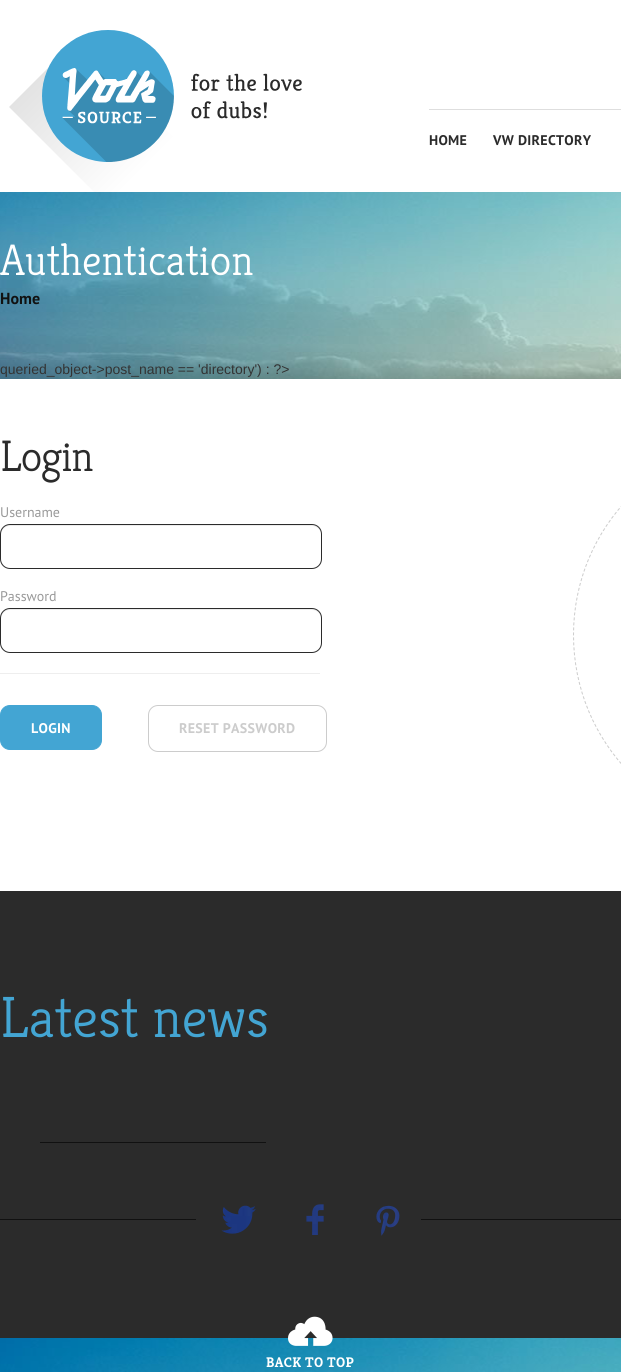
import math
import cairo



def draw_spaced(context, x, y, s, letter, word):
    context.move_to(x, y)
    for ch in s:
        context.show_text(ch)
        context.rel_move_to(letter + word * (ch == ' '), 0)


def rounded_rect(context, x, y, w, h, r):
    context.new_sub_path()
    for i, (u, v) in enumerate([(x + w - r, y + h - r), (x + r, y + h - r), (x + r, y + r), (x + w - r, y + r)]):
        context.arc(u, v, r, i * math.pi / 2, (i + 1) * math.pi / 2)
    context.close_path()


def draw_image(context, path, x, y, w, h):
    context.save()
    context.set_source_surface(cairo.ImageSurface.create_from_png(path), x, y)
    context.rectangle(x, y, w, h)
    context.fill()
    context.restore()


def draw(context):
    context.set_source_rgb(1, 1, 1)
    context.paint()
    draw_image(context, "images/1.png", 0, 192, 621, 1180)
    gradient = cairo.LinearGradient(43, 74, 141, 172)
    gradient.add_color_stop_rgba(0, 0, 0, 0, 0.11)
    gradient.add_color_stop_rgba(1, 0, 0, 0, 0)
    context.set_source(gradient)
    context.new_path()
    context.move_to(9, 107)
    context.line_to(76, 40)
    context.line_to(175, 139)
    context.line_to(108, 206)
    context.close_path()
    context.fill()
    draw_image(context, "images/2.png", 42, 30, 260, 132)
    context.set_source_rgb(222 / 255, 222 / 255, 222 / 255)
    context.rectangle(429, 109, 192, 1)
    context.fill()
    context.set_source_rgb(1, 1, 1)
    context.rectangle(0, 379, 621, 512)
    context.fill()
    context.set_source_rgb(236 / 255, 236 / 255, 236 / 255)
    context.new_path()
    context.move_to(10, 526)
    context.line_to(312, 526)
    context.curve_to(317, 526, 321, 530, 321, 535)
    context.line_to(321, 534)
    context.curve_to(321, 529, 317, 525, 312, 525)
    context.line_to(10, 525)
    context.curve_to(5, 525, 1, 529, 1, 534)
    context.line_to(1, 535)
    context.curve_to(1, 530, 5, 526, 10, 526)
    context.close_path()
    context.fill()
    rounded_rect(context, 0.5, 524.5, 321, 44, 9.5)
    context.set_source_rgb(43 / 255, 43 / 255, 43 / 255)
    context.set_line_width(1)
    context.stroke()
    context.set_source_rgb(236 / 255, 236 / 255, 236 / 255)
    context.new_path()
    context.move_to(10, 610)
    context.line_to(312, 610)
    context.curve_to(317, 610, 321, 614, 321, 619)
    context.line_to(321, 618)
    context.curve_to(321, 613, 317, 609, 312, 609)
    context.line_to(10, 609)
    context.curve_to(5, 609, 1, 613, 1, 618)
    context.line_to(1, 619)
    context.curve_to(1, 614, 5, 610, 10, 610)
    context.close_path()
    context.fill()
    rounded_rect(context, 0.5, 608.5, 321, 44, 9.5)
    context.set_source_rgb(43 / 255, 43 / 255, 43 / 255)
    context.stroke()
    context.set_source_rgb(238 / 255, 238 / 255, 238 / 255)
    context.rectangle(0, 673, 320, 1)
    context.fill()
    context.set_source_rgb(67 / 255, 165 / 255, 211 / 255)
    rounded_rect(context, 0.5, 705.5, 101, 44, 9.5)
    context.fill_preserve()
    context.stroke()
    rounded_rect(context, 148.5, 705.5, 178, 46, 9.5)
    context.set_source_rgb(204 / 255, 204 / 255, 204 / 255)
    context.stroke()
    context.new_path()
    context.move_to(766.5, 439.5)
    context.curve_to(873, 439.5, 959.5, 527, 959.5, 635)
    context.curve_to(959.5, 743, 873, 830.5, 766.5, 830.5)
    context.curve_to(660, 830.5, 573.5, 743, 573.5, 635)
    context.curve_to(573.5, 527, 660, 439.5, 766.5, 439.5)
    context.close_path()
    context.set_dash([3, 2])
    context.stroke()
    context.set_source_rgb(43 / 255, 43 / 255, 43 / 255)
    context.rectangle(0, 891, 621, 297)
    context.fill()
    context.set_source_rgb(17 / 255, 17 / 255, 17 / 255)
    context.rectangle(40, 1142, 226, 1)
    context.fill()
    draw_image(context, "images/3.png", 0, 1188, 621, 150)
    context.select_font_face("PT Sans", cairo.FontSlant.NORMAL, cairo.FontWeight.BOLD)
    context.set_font_size(14)
    context.set_source_rgb(43 / 255, 43 / 255, 43 / 255)
    draw_spaced(context, 429, 145, "HOME", 0.3, 0)
    draw_spaced(context, 493, 145, "VW DIRECTORY", 0.3, 0)
    context.select_font_face("Kreon Light")
    context.set_font_size(44)
    context.set_source_rgb(1, 1, 1)
    context.move_to(0, 275)
    context.show_text("Authentication")
    context.select_font_face("PT Sans", cairo.FontSlant.NORMAL, cairo.FontWeight.BOLD)
    context.set_font_size(16)
    context.set_source_rgb(17 / 255, 17 / 255, 17 / 255)
    context.move_to(0, 304)
    context.show_text("Home")
    context.select_font_face("Liberation Sans")
    context.set_font_size(14)
    context.set_source_rgb(51 / 255, 51 / 255, 51 / 255)
    context.move_to(0, 374)
    context.show_text("queried_object->post_name == 'directory') : ?>")
    context.select_font_face("Kreon Light")
    context.set_font_size(44)
    context.set_source_rgb(43 / 255, 43 / 255, 43 / 255)
    draw_spaced(context, 0, 471, "Login", -1, 0)
    context.select_font_face("PT Sans")
    context.set_font_size(14)
    context.set_source_rgb(153 / 255, 153 / 255, 153 / 255)
    context.move_to(0, 517)
    context.show_text("Username")
    context.move_to(0, 601)
    context.show_text("Password")
    context.select_font_face("PT Sans", cairo.FontSlant.NORMAL, cairo.FontWeight.BOLD)
    context.set_source_rgb(1, 1, 1)
    draw_spaced(context, 31, 733, "LOGIN", 0.3, 0)
    context.set_source_rgb(204 / 255, 204 / 255, 204 / 255)
    draw_spaced(context, 179, 733, "RESET PASSWORD", 0.3, 0)
    context.select_font_face("Kreon Light")
    context.set_font_size(58)
    context.set_source_rgb(67 / 255, 165 / 255, 211 / 255)
    context.move_to(0, 1037)
    context.show_text("Latest news")
    context.select_font_face("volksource")
    context.set_font_size(30)
    context.set_source_rgb(1, 1, 1)
    draw_spaced(context, 288, 1344, "4", 0.3, 0)
    context.select_font_face("Kreon", cairo.FontSlant.NORMAL, cairo.FontWeight.BOLD)
    context.set_font_size(14)
    draw_spaced(context, 266, 1367, "BACK TO TOP", 0.3, 0)


surface = cairo.ImageSurface(cairo.Format.RGB24, 621, 1372)
context = cairo.Context(surface)
options = cairo.FontOptions()
options.set_hint_metrics(cairo.HintMetrics.OFF)
options.set_hint_style(cairo.HintStyle.NONE)
context.set_font_options(options)
context.set_miter_limit(4)
draw(context)
surface.write_to_png("out.png")
